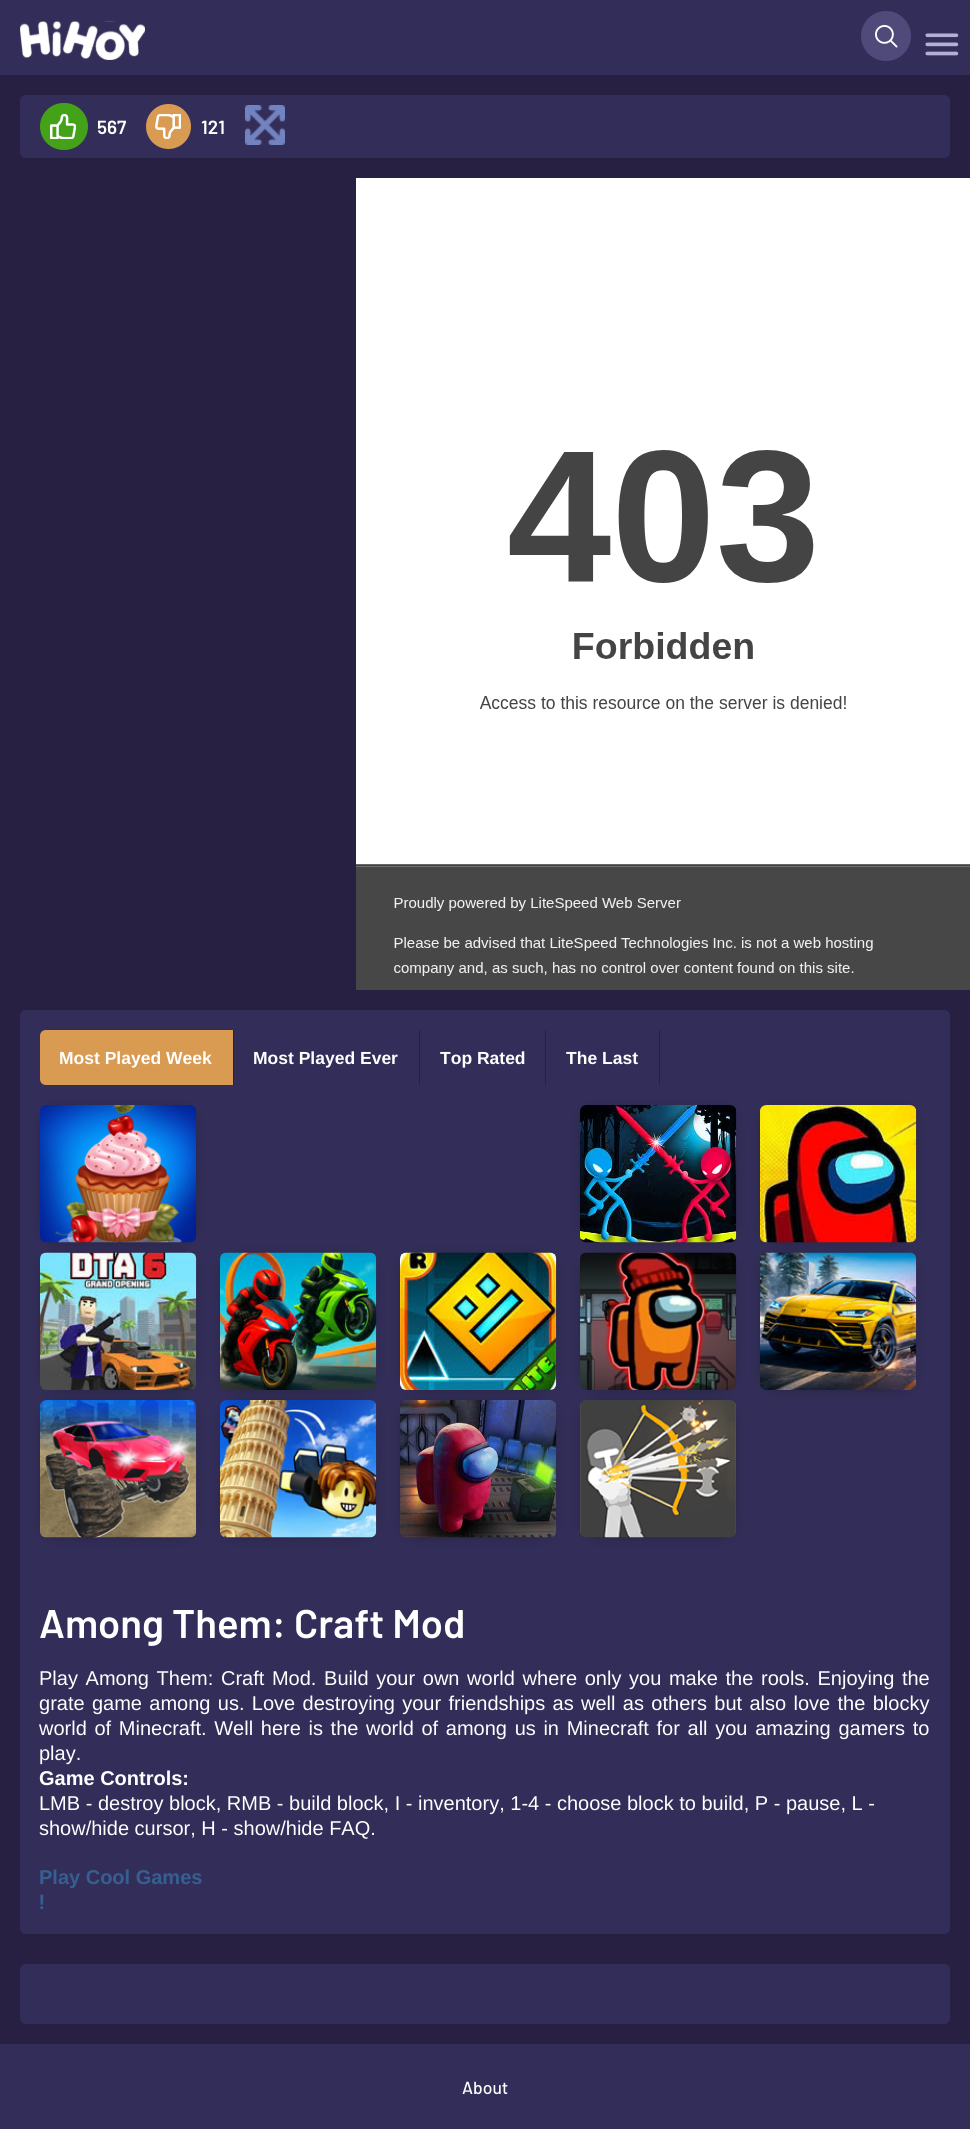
import math
import cairo



def draw_spaced(context, x, y, s, letter, word):
    context.move_to(x, y)
    for ch in s:
        context.show_text(ch)
        context.rel_move_to(letter + word * (ch == ' '), 0)


def rounded_rect(context, x, y, w, h, r):
    context.new_sub_path()
    for i, (u, v) in enumerate([(x + w - r, y + h - r), (x + r, y + h - r), (x + r, y + r), (x + w - r, y + r)]):
        context.arc(u, v, r, i * math.pi / 2, (i + 1) * math.pi / 2)
    context.close_path()


def draw_shadow(context, x, y, w, h, r, blur, alpha):
    context.push_group_with_content(cairo.Content.ALPHA)
    context.set_operator(cairo.Operator.SOURCE)
    for i in range(15, -16, -2):
        e = blur * i / 6
        if min(w, h) + 2 * e > 0:
            context.set_source_rgba(0, 0, 0, alpha * math.erfc((i - 1) / 8.5) / 2)
            rounded_rect(context, x - e, y - e, w + 2 * e, h + 2 * e, max(0, min(r + e + blur * .6, min(w, h) / 2 + e)))
            context.fill()
    context.mask(context.pop_group())


def draw_image(context, path, x, y, w, h):
    context.save()
    context.set_source_surface(cairo.ImageSurface.create_from_png(path), x, y)
    context.rectangle(x, y, w, h)
    context.fill()
    context.restore()


def draw(context):
    context.set_source_rgb(39 / 255, 32 / 255, 66 / 255)
    context.paint()
    context.set_source_rgb(51 / 255, 46 / 255, 89 / 255)
    context.rectangle(0, 0, 970, 75)
    context.fill()
    draw_image(context, "images/1.png", 20, 21, 125, 39)
    context.set_source_rgb(80 / 255, 74 / 255, 123 / 255)
    context.arc(886, 36, 25, 0, 2 * math.pi)
    context.fill()
    draw_image(context, "images/2.png", 875, 25, 23, 23)
    draw_image(context, "images/3.png", 925, 33, 34, 23)
    context.set_source_rgb(51 / 255, 46 / 255, 89 / 255)
    rounded_rect(context, 20, 95, 930, 63, 6)
    context.fill()
    context.set_source_rgb(68 / 255, 162 / 255, 25 / 255)
    rounded_rect(context, 40, 103, 48, 47, 23.5)
    context.fill()
    draw_image(context, "images/4.png", 50, 114, 26, 25)
    context.set_source_rgb(217 / 255, 154 / 255, 81 / 255)
    context.arc(168.5, 126.5, 22.5, 0, 2 * math.pi)
    context.fill()
    draw_image(context, "images/5.png", 155, 114, 26, 25)
    draw_image(context, "images/6.png", 245, 105, 40, 40)
    draw_image(context, "images/7.png", 356, 178, 614, 812)
    context.set_source_rgb(51 / 255, 46 / 255, 89 / 255)
    rounded_rect(context, 20, 1010, 930, 924, 6)
    context.fill()
    context.set_source_rgb(217 / 255, 154 / 255, 81 / 255)
    context.new_path()
    context.move_to(46, 1030)
    context.line_to(234, 1030)
    context.line_to(234, 1085)
    context.line_to(46, 1085)
    context.curve_to(42.5, 1085, 40, 1082.5, 40, 1079)
    context.line_to(40, 1036)
    context.curve_to(40, 1032.5, 42.5, 1030, 46, 1030)
    context.close_path()
    context.fill()
    context.set_source_rgb(39 / 255, 32 / 255, 66 / 255)
    context.rectangle(233, 1030, 1, 55)
    context.fill()
    context.rectangle(419, 1030, 1, 55)
    context.fill()
    context.rectangle(545, 1030, 1, 55)
    context.fill()
    context.rectangle(659, 1030, 1, 55)
    context.fill()
    context.set_source_rgb(0, 0, 0)
    draw_shadow(context, 40, 1106, 156, 138, 19, 6, 0.2)
    draw_image(context, "images/8.png", 40, 1105, 157, 138)
    draw_shadow(context, 580, 1106, 156, 138, 19, 6, 0.2)
    draw_image(context, "images/9.png", 580, 1105, 157, 138)
    draw_shadow(context, 760, 1106, 156, 138, 19, 6, 0.2)
    draw_image(context, "images/10.png", 760, 1105, 157, 138)
    draw_shadow(context, 40, 1254, 156, 137, 19, 6, 0.2)
    draw_image(context, "images/11.png", 40, 1252, 157, 138)
    draw_shadow(context, 220, 1254, 156, 137, 19, 6, 0.2)
    draw_image(context, "images/12.png", 220, 1252, 157, 138)
    draw_shadow(context, 400, 1254, 156, 137, 19, 6, 0.2)
    draw_image(context, "images/13.png", 400, 1252, 157, 138)
    draw_shadow(context, 580, 1254, 156, 137, 19, 6, 0.2)
    draw_image(context, "images/14.png", 580, 1252, 157, 138)
    draw_shadow(context, 760, 1254, 156, 137, 19, 6, 0.2)
    draw_image(context, "images/15.png", 760, 1252, 157, 138)
    draw_shadow(context, 40, 1401, 156, 138, 19, 6, 0.2)
    draw_image(context, "images/16.png", 40, 1400, 157, 138)
    draw_shadow(context, 220, 1401, 156, 138, 19, 6, 0.2)
    draw_image(context, "images/17.png", 220, 1400, 157, 138)
    draw_shadow(context, 400, 1401, 156, 138, 19, 6, 0.2)
    draw_image(context, "images/18.png", 400, 1400, 157, 138)
    draw_shadow(context, 580, 1401, 156, 138, 19, 6, 0.2)
    draw_image(context, "images/19.png", 580, 1400, 156, 138)
    context.set_source_rgb(51 / 255, 46 / 255, 89 / 255)
    rounded_rect(context, 20, 1964, 930, 60, 6)
    context.fill()
    context.rectangle(0, 2044, 970, 85)
    context.fill()
    context.select_font_face("Barlow SemiBold")
    context.set_font_size(19)
    context.set_source_rgb(1, 1, 1)
    context.move_to(97, 134)
    context.show_text("567")
    context.move_to(201, 134)
    context.show_text("121")
    context.select_font_face("Liberation Sans", cairo.FontSlant.NORMAL, cairo.FontWeight.BOLD)
    context.set_font_size(17.5)
    context.move_to(59, 1064)
    context.show_text("Most Played Week")
    context.move_to(253, 1064)
    context.show_text("Most Played Ever")
    context.move_to(440, 1064)
    context.show_text("Top Rated")
    context.move_to(566, 1064)
    context.show_text("The Last")
    context.select_font_face("Barlow SemiBold")
    context.set_font_size(40)
    context.move_to(39, 1638)
    context.show_text("Among Them: Craft Mod")
    context.select_font_face("Liberation Sans")
    context.set_font_size(20)
    draw_spaced(context, 39, 1685, "Play Among Them: Craft Mod. Build your own world where only you make the rools. Enjoying the", 0, 2.1)
    draw_spaced(context, 39, 1710, "grate game among us. Love destroying your friendships as well as others but also love the blocky", 0, 1.8)
    draw_spaced(context, 39, 1735, "world of Minecraft. Well here is the world of among us in Minecraft for all you amazing gamers to", 0, 2.1)
    context.move_to(39, 1760)
    context.show_text("play.")
    context.select_font_face("Liberation Sans", cairo.FontSlant.NORMAL, cairo.FontWeight.BOLD)
    context.move_to(39, 1785)
    context.show_text("Game Controls:")
    context.select_font_face("Liberation Sans")
    context.move_to(39, 1810)
    context.show_text("LMB - destroy block, RMB - build block, I - inventory, 1-4 - choose block to build, P - pause, L -")
    context.move_to(39, 1835)
    context.show_text("show/hide cursor, H - show/hide FAQ.")
    context.select_font_face("Liberation Sans", cairo.FontSlant.NORMAL, cairo.FontWeight.BOLD)
    context.set_source_rgb(54 / 255, 95 / 255, 145 / 255)
    context.move_to(39, 1884)
    context.show_text("Play Cool Games")
    context.select_font_face("Roboto", cairo.FontSlant.NORMAL, cairo.FontWeight.BOLD)
    context.move_to(39, 1909)
    context.show_text("!")
    context.select_font_face("Barlow Medium")
    context.set_font_size(17.5)
    context.set_source_rgb(1, 1, 1)
    context.move_to(462, 2094)
    context.show_text("About")


surface = cairo.ImageSurface(cairo.Format.RGB24, 970, 2129)
context = cairo.Context(surface)
options = cairo.FontOptions()
options.set_hint_metrics(cairo.HintMetrics.OFF)
options.set_hint_style(cairo.HintStyle.NONE)
context.set_font_options(options)
context.set_miter_limit(4)
draw(context)
surface.write_to_png("out.png")
